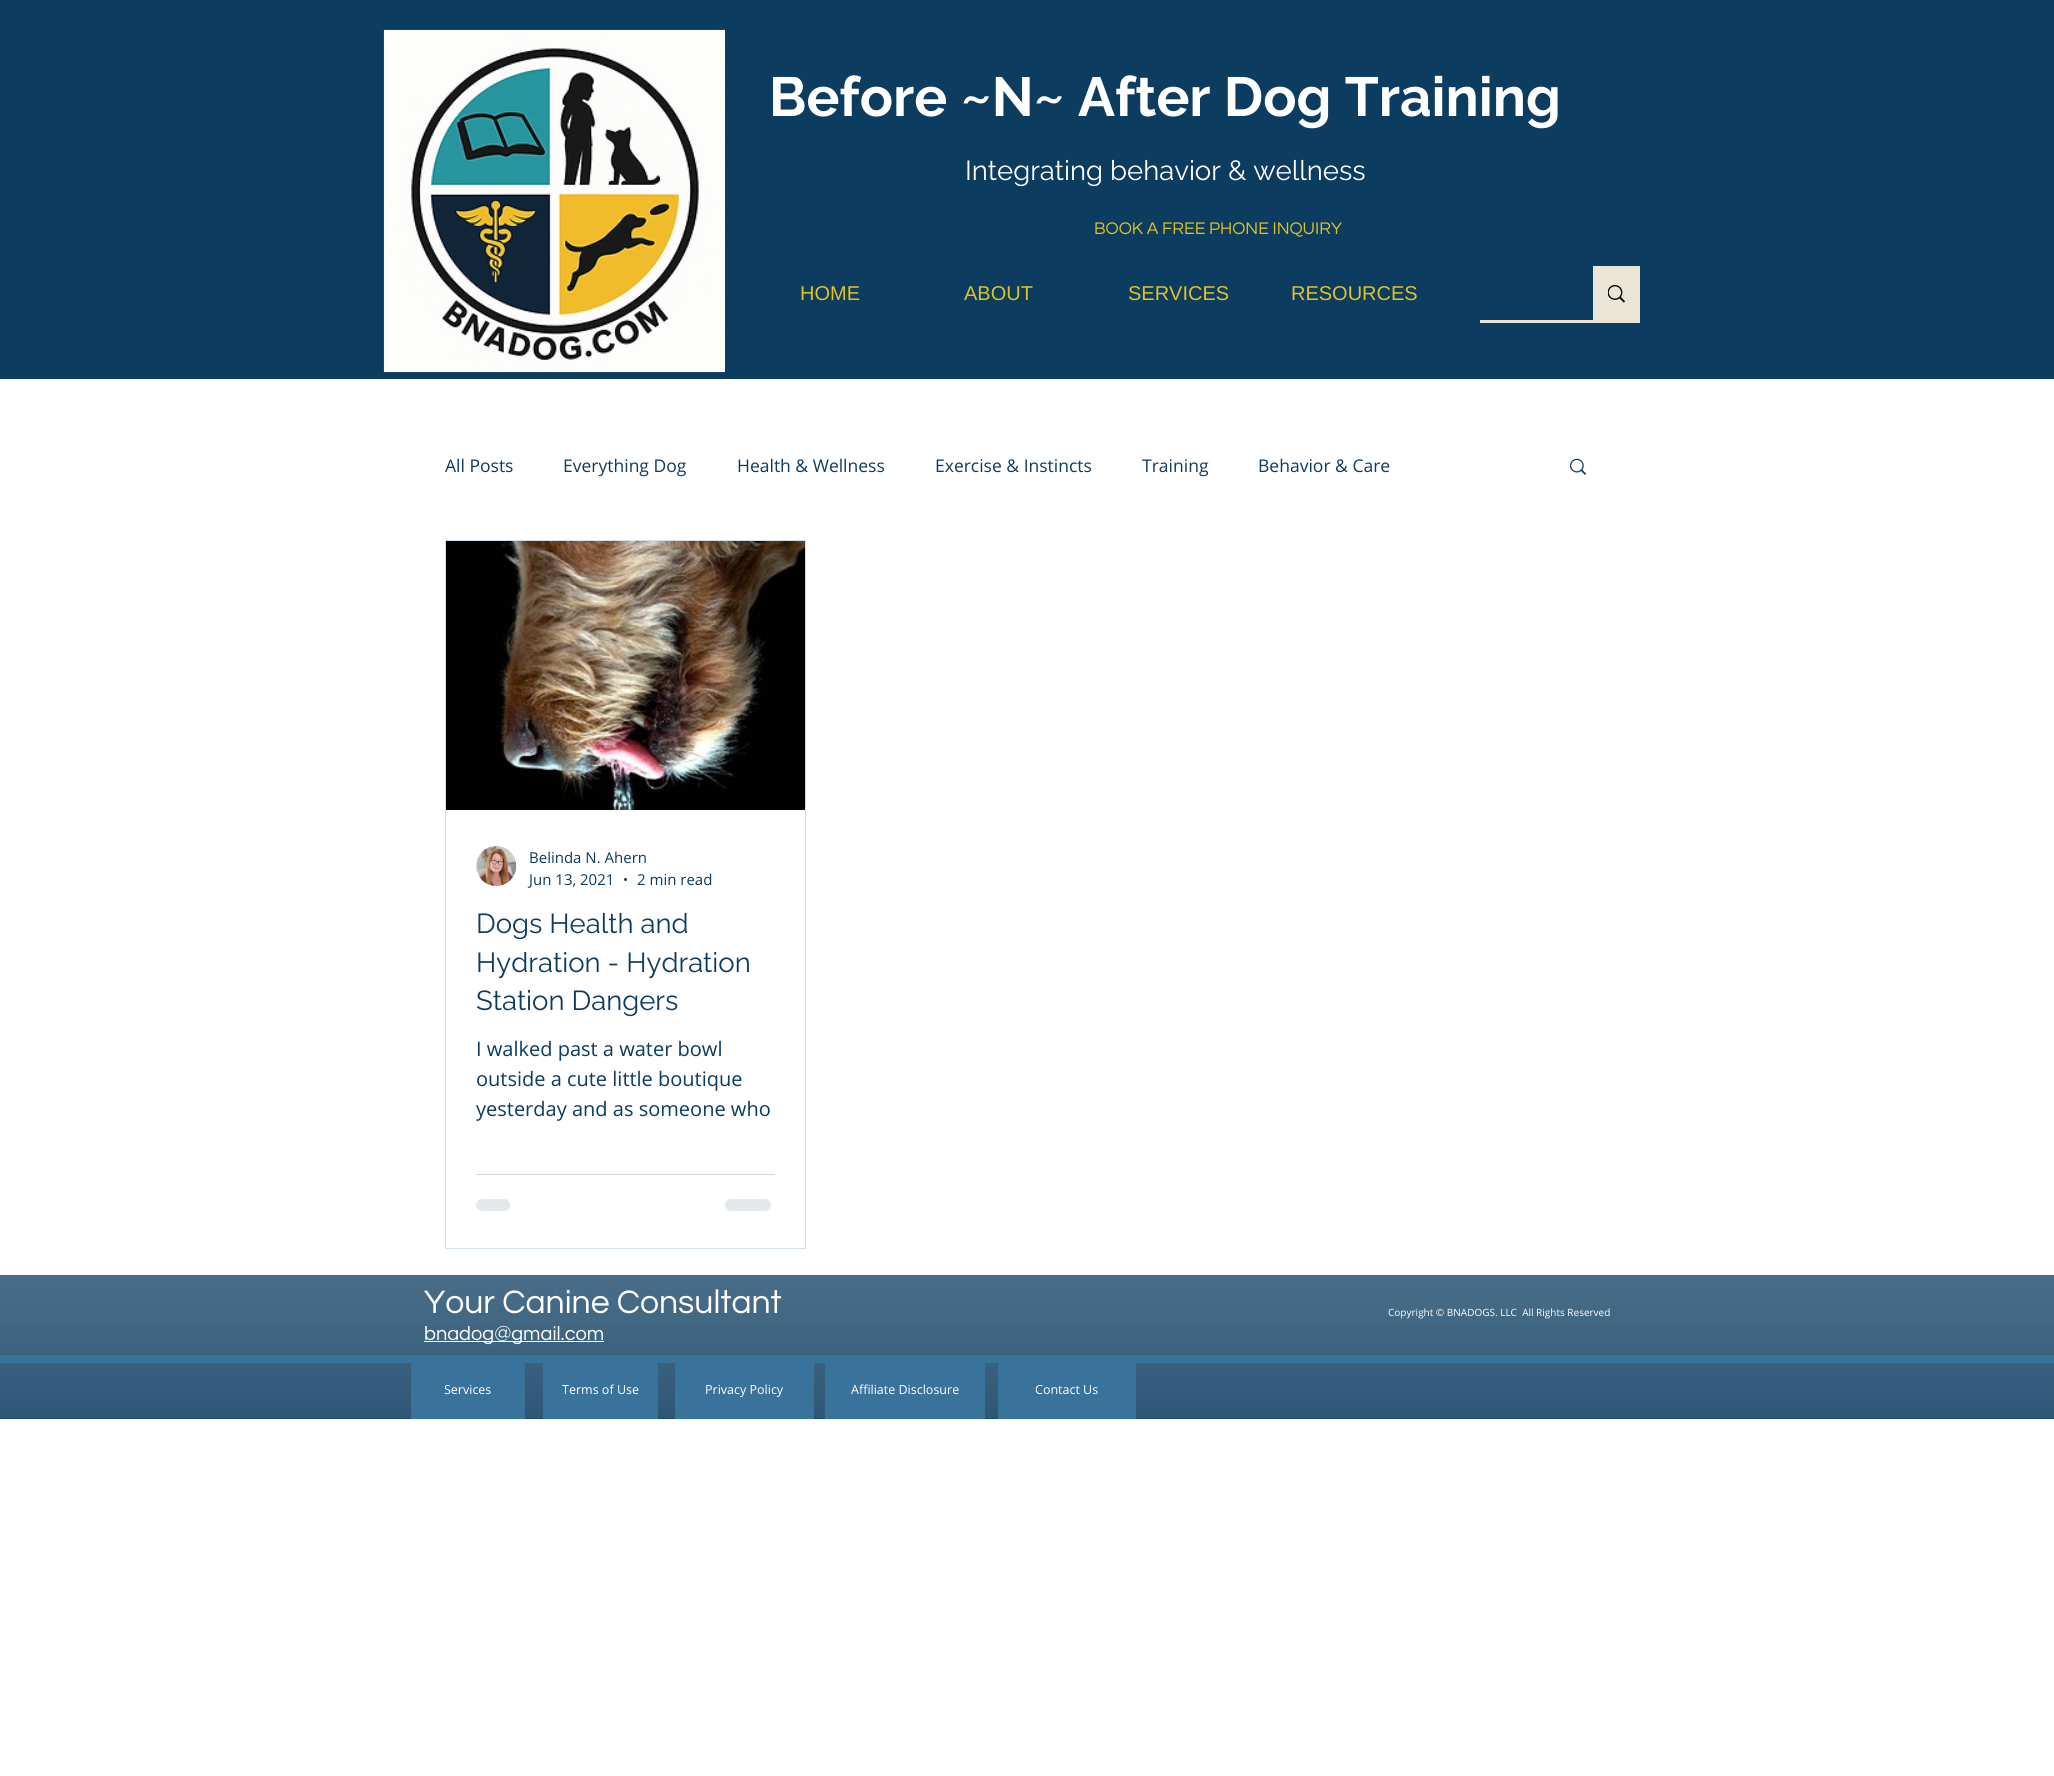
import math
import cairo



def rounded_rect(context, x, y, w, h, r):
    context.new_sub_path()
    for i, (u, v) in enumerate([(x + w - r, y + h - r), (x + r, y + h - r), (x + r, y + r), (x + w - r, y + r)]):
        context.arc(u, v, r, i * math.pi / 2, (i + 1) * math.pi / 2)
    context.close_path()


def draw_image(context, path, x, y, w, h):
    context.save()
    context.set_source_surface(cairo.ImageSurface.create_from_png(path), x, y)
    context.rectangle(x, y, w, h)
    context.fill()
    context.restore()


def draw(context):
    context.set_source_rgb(1, 1, 1)
    context.paint()
    context.set_source_rgb(12 / 255, 60 / 255, 96 / 255)
    context.rectangle(0, 0, 2054, 379)
    context.fill()
    draw_image(context, "images/1.png", 383, 29, 342, 344)
    context.set_source_rgb(235 / 255, 229 / 255, 214 / 255)
    context.rectangle(1480, 320, 160, 3)
    context.fill()
    context.rectangle(1593, 266, 47, 54)
    context.fill()
    draw_image(context, "images/2.png", 1608, 285, 17, 18)
    draw_image(context, "images/3.png", 1570, 458, 17, 17)
    context.rectangle(445.5, 540.5, 360, 708)
    context.set_source_rgb(209 / 255, 224 / 255, 235 / 255)
    context.set_line_width(1)
    context.stroke()
    draw_image(context, "images/4.png", 446, 541, 359, 269)
    draw_image(context, "images/5.png", 476, 846, 41, 40)
    context.set_source_rgb(12 / 255, 60 / 255, 96 / 255)
    context.arc(625.5, 879.5, 1.5, 0, 2 * math.pi)
    context.fill()
    context.set_source_rgb(206 / 255, 216 / 255, 223 / 255)
    context.rectangle(476, 1174, 299, 1)
    context.fill()
    context.set_source_rgb(226 / 255, 232 / 255, 236 / 255)
    rounded_rect(context, 476, 1199, 34, 12, 6)
    context.fill()
    rounded_rect(context, 725, 1199, 46, 12, 6)
    context.fill()
    context.set_source_rgb(12 / 255, 60 / 255, 96 / 255)
    context.rectangle(0, 1275, 2054, 144)
    context.fill()
    draw_image(context, "images/6.png", 0, 1275, 2054, 144)
    context.set_source_rgb(1, 1, 1)
    context.rectangle(424, 1341, 180, 1)
    context.fill()
    context.set_source_rgb(57 / 255, 114 / 255, 155 / 255)
    context.rectangle(0, 1355, 2054, 8)
    context.fill()
    context.rectangle(411, 1363, 114, 56)
    context.fill()
    context.rectangle(543, 1363, 115, 56)
    context.fill()
    context.rectangle(675, 1363, 139, 56)
    context.fill()
    context.rectangle(825, 1363, 160, 56)
    context.fill()
    context.rectangle(998, 1363, 138, 56)
    context.fill()
    context.select_font_face("Raleway", cairo.FontSlant.NORMAL, cairo.FontWeight.BOLD)
    context.set_font_size(55)
    context.set_source_rgb(1, 1, 1)
    context.move_to(769, 116)
    context.show_text("Before ~N~ After Dog Training")
    context.select_font_face("Raleway")
    context.set_font_size(27.5)
    context.move_to(965, 180)
    context.show_text("Integrating behavior & wellness")
    context.select_font_face("Questrial")
    context.set_font_size(17.5)
    context.set_source_rgb(222 / 255, 195 / 255, 40 / 255)
    context.move_to(1094, 234)
    context.show_text("BOOK A FREE PHONE INQUIRY")
    context.select_font_face("Liberation Sans")
    context.set_font_size(20)
    context.move_to(800, 300)
    context.show_text("HOME")
    context.move_to(964, 300)
    context.show_text("ABOUT")
    context.move_to(1128, 300)
    context.show_text("SERVICES")
    context.move_to(1291, 300)
    context.show_text("RESOURCES")
    context.select_font_face("Open Sans")
    context.set_font_size(17.5)
    context.set_source_rgb(12 / 255, 60 / 255, 96 / 255)
    context.move_to(445, 472)
    context.show_text("All Posts")
    context.move_to(563, 472)
    context.show_text("Everything Dog")
    context.move_to(737, 472)
    context.show_text("Health & Wellness")
    context.move_to(935, 472)
    context.show_text("Exercise & Instincts")
    context.move_to(1142, 472)
    context.show_text("Training")
    context.move_to(1258, 472)
    context.show_text("Behavior & Care")
    context.set_font_size(15)
    context.move_to(529, 863)
    context.show_text("Belinda N. Ahern")
    context.move_to(529, 885)
    context.show_text("Jun 13, 2021")
    context.move_to(637, 885)
    context.show_text("2 min read")
    context.select_font_face("Raleway")
    context.set_font_size(27.5)
    context.move_to(476, 933)
    context.show_text("Dogs Health and")
    context.move_to(476, 972)
    context.show_text("Hydration - Hydration")
    context.move_to(476, 1010)
    context.show_text("Station Dangers")
    context.select_font_face("Open Sans")
    context.set_font_size(20)
    context.move_to(476, 1056)
    context.show_text("I walked past a water bowl")
    context.move_to(476, 1086)
    context.show_text("outside a cute little boutique")
    context.move_to(476, 1116)
    context.show_text("yesterday and as someone who")
    context.select_font_face("Questrial")
    context.set_font_size(33.75)
    context.set_source_rgb(1, 1, 1)
    context.move_to(424, 1313)
    context.show_text("Your Canine Consultant")
    context.set_font_size(20)
    context.move_to(424, 1340)
    context.show_text("bnadog@gmail.com")
    context.select_font_face("Open Sans")
    context.set_font_size(10)
    context.move_to(1388, 1316)
    context.show_text("Copyright © BNADOGS. LLC  All Rights Reserved")
    context.set_font_size(12.5)
    context.move_to(444, 1394)
    context.show_text("Services")
    context.move_to(562, 1394)
    context.show_text("Terms of Use")
    context.move_to(705, 1394)
    context.show_text("Privacy Policy")
    context.move_to(851, 1394)
    context.show_text("Affiliate Disclosure")
    context.move_to(1035, 1394)
    context.show_text("Contact Us")


surface = cairo.ImageSurface(cairo.Format.RGB24, 2054, 1776)
context = cairo.Context(surface)
options = cairo.FontOptions()
options.set_hint_metrics(cairo.HintMetrics.OFF)
options.set_hint_style(cairo.HintStyle.NONE)
context.set_font_options(options)
context.set_miter_limit(4)
draw(context)
surface.write_to_png("out.png")
